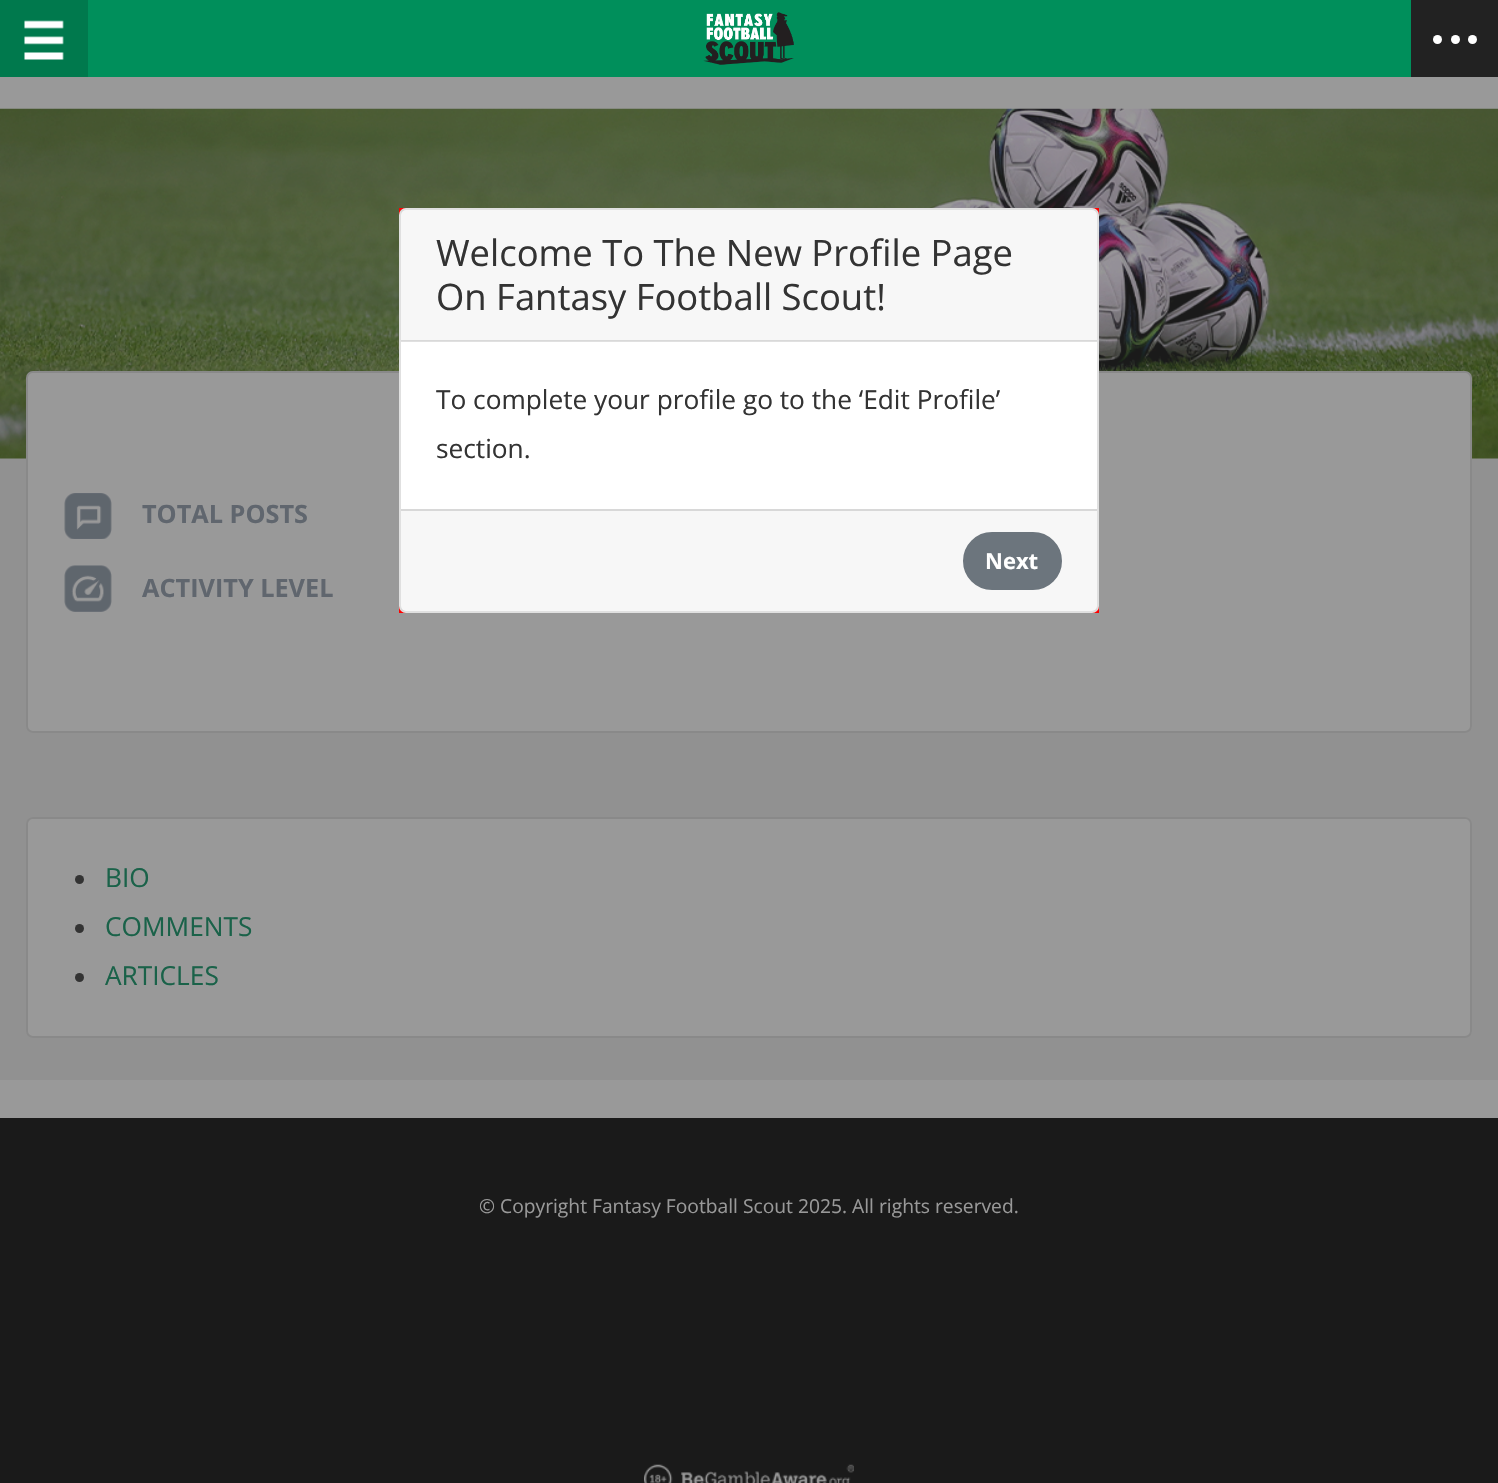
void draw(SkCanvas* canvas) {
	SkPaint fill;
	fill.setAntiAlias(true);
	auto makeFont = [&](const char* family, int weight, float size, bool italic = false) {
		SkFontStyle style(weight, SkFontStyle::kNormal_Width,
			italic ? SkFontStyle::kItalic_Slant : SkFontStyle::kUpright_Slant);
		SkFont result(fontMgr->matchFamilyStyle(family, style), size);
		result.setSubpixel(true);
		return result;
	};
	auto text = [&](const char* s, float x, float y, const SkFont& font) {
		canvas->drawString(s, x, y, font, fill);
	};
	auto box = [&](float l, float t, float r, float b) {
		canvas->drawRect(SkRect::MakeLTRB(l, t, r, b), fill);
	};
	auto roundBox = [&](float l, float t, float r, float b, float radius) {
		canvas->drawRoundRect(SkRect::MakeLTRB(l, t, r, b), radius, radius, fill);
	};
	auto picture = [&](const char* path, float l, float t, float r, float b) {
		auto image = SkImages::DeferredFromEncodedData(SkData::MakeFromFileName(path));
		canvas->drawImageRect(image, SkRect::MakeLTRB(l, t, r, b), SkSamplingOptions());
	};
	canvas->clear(0xFF1A1A1A);
	fill.setColor(0xFF008F5B);
	box(88, 0, 1411, 77);
	fill.setColor(0xFF00794D);
	box(0, 0, 88, 77);
	picture("image0.png", 24, 20, 64, 60);
	fill.setColor(0xFF222222);
	box(1411, 0, 1498, 77);
	fill.setColor(0xFFFFFFFF);
	canvas->drawCircle(1437.5f, 39.5f, 4.5f, fill);
	canvas->drawCircle(1455.5f, 39.5f, 4.5f, fill);
	canvas->drawCircle(1472.5f, 39.5f, 4.5f, fill);
	picture("image1.png", 703, 12, 794, 65);
	fill.setColor(0xFF999999);
	box(0, 77, 1498, 1118);
	fill.setColor(0xFF919191);
	box(0, 458, 1498, 1080);
	picture("image2.png", 0, 108, 1498, 459);
	fill.setColor(0xFF999999);
	roundBox(26, 371, 1472, 733, 7);
	fill.setStyle(SkPaint::kStroke_Style);
	fill.setStrokeWidth(2);
	fill.setColor(0x1F1A1A1A);
	canvas->drawRoundRect(SkRect::MakeLTRB(27, 372, 1471, 732), 6, 6, fill);
	fill.setStyle(SkPaint::kFill_Style);
	fill.setColor(0xFFFF0000);
	box(399, 208, 1099, 613);
	fill.setColor(0xFFFFFFFF);
	roundBox(399, 208, 1099, 613, 7);
	fill.setStyle(SkPaint::kStroke_Style);
	fill.setColor(0x1F000000);
	canvas->drawRoundRect(SkRect::MakeLTRB(400, 209, 1098, 612), 6, 6, fill);
	fill.setStyle(SkPaint::kFill_Style);
	fill.setColor(0x08000000);
	box(401, 210, 1097, 341);
	fill.setColor(0x1F000000);
	box(401, 340, 1097, 342);
	fill.setColor(0x08000000);
	box(401, 511, 1097, 611);
	fill.setColor(0xFFD8D8D8);
	box(401, 509, 1097, 511);
	fill.setColor(0xFF6C757D);
	canvas->drawRoundRect(SkRect::MakeLTRB(964, 533, 1061, 589), 28, 28, fill);
	fill.setStyle(SkPaint::kStroke_Style);
	canvas->drawRoundRect(SkRect::MakeLTRB(964, 533, 1061, 589), 28, 28, fill);
	picture("image3.png", 64, 493, 112, 539);
	picture("image4.png", 64, 565, 112, 612);
	fill.setStyle(SkPaint::kFill_Style);
	fill.setColor(0xFF999999);
	roundBox(26, 817, 1472, 1038, 7);
	fill.setStyle(SkPaint::kStroke_Style);
	fill.setColor(0x1F1A1A1A);
	canvas->drawRoundRect(SkRect::MakeLTRB(27, 818, 1471, 1037), 6, 6, fill);
	fill.setStyle(SkPaint::kFill_Style);
	fill.setColor(0xFF333333);
	canvas->drawCircle(79.5f, 879.5f, 4.5f, fill);
	canvas->drawCircle(79.5f, 928.5f, 4.5f, fill);
	canvas->drawCircle(79.5f, 977.5f, 4.5f, fill);
	picture("image5.png", 644, 1464, 854, 1483);
	auto font1 = makeFont("Open Sans", 400, 36.4f);
	text("Welcome To The New Profile Page", 436, 266, font1);
	text("On Fantasy Football Scout!", 436, 310, font1);
	auto font2 = makeFont("Open Sans", 400, 26.25f);
	text("To complete your profile go to the ‘Edit Profile’", 436, 409, font2);
	text("section.", 436, 458, font2);
	auto font3 = makeFont("Open Sans", 700, 22);
	fill.setColor(0xFFFFFFFF);
	text("Next", 985, 569, font3);
	auto font4 = makeFont("Open Sans", 700, 25.25f);
	fill.setColor(0xFF60666E);
	text("TOTAL POSTS", 142, 523, font4);
	text("ACTIVITY LEVEL", 142, 597, font4);
	fill.setColor(0xFF1A6249);
	text("BIO", 105, 887, font2);
	text("COMMENTS", 105, 936, font2);
	text("ARTICLES", 105, 985, font2);
	auto font5 = makeFont("Open Sans", 400, 19.25f);
	fill.setColor(0xFF999999);
	text("© Copyright Fantasy Football Scout 2025. All rights reserved.", 479, 1213, font5);
}
